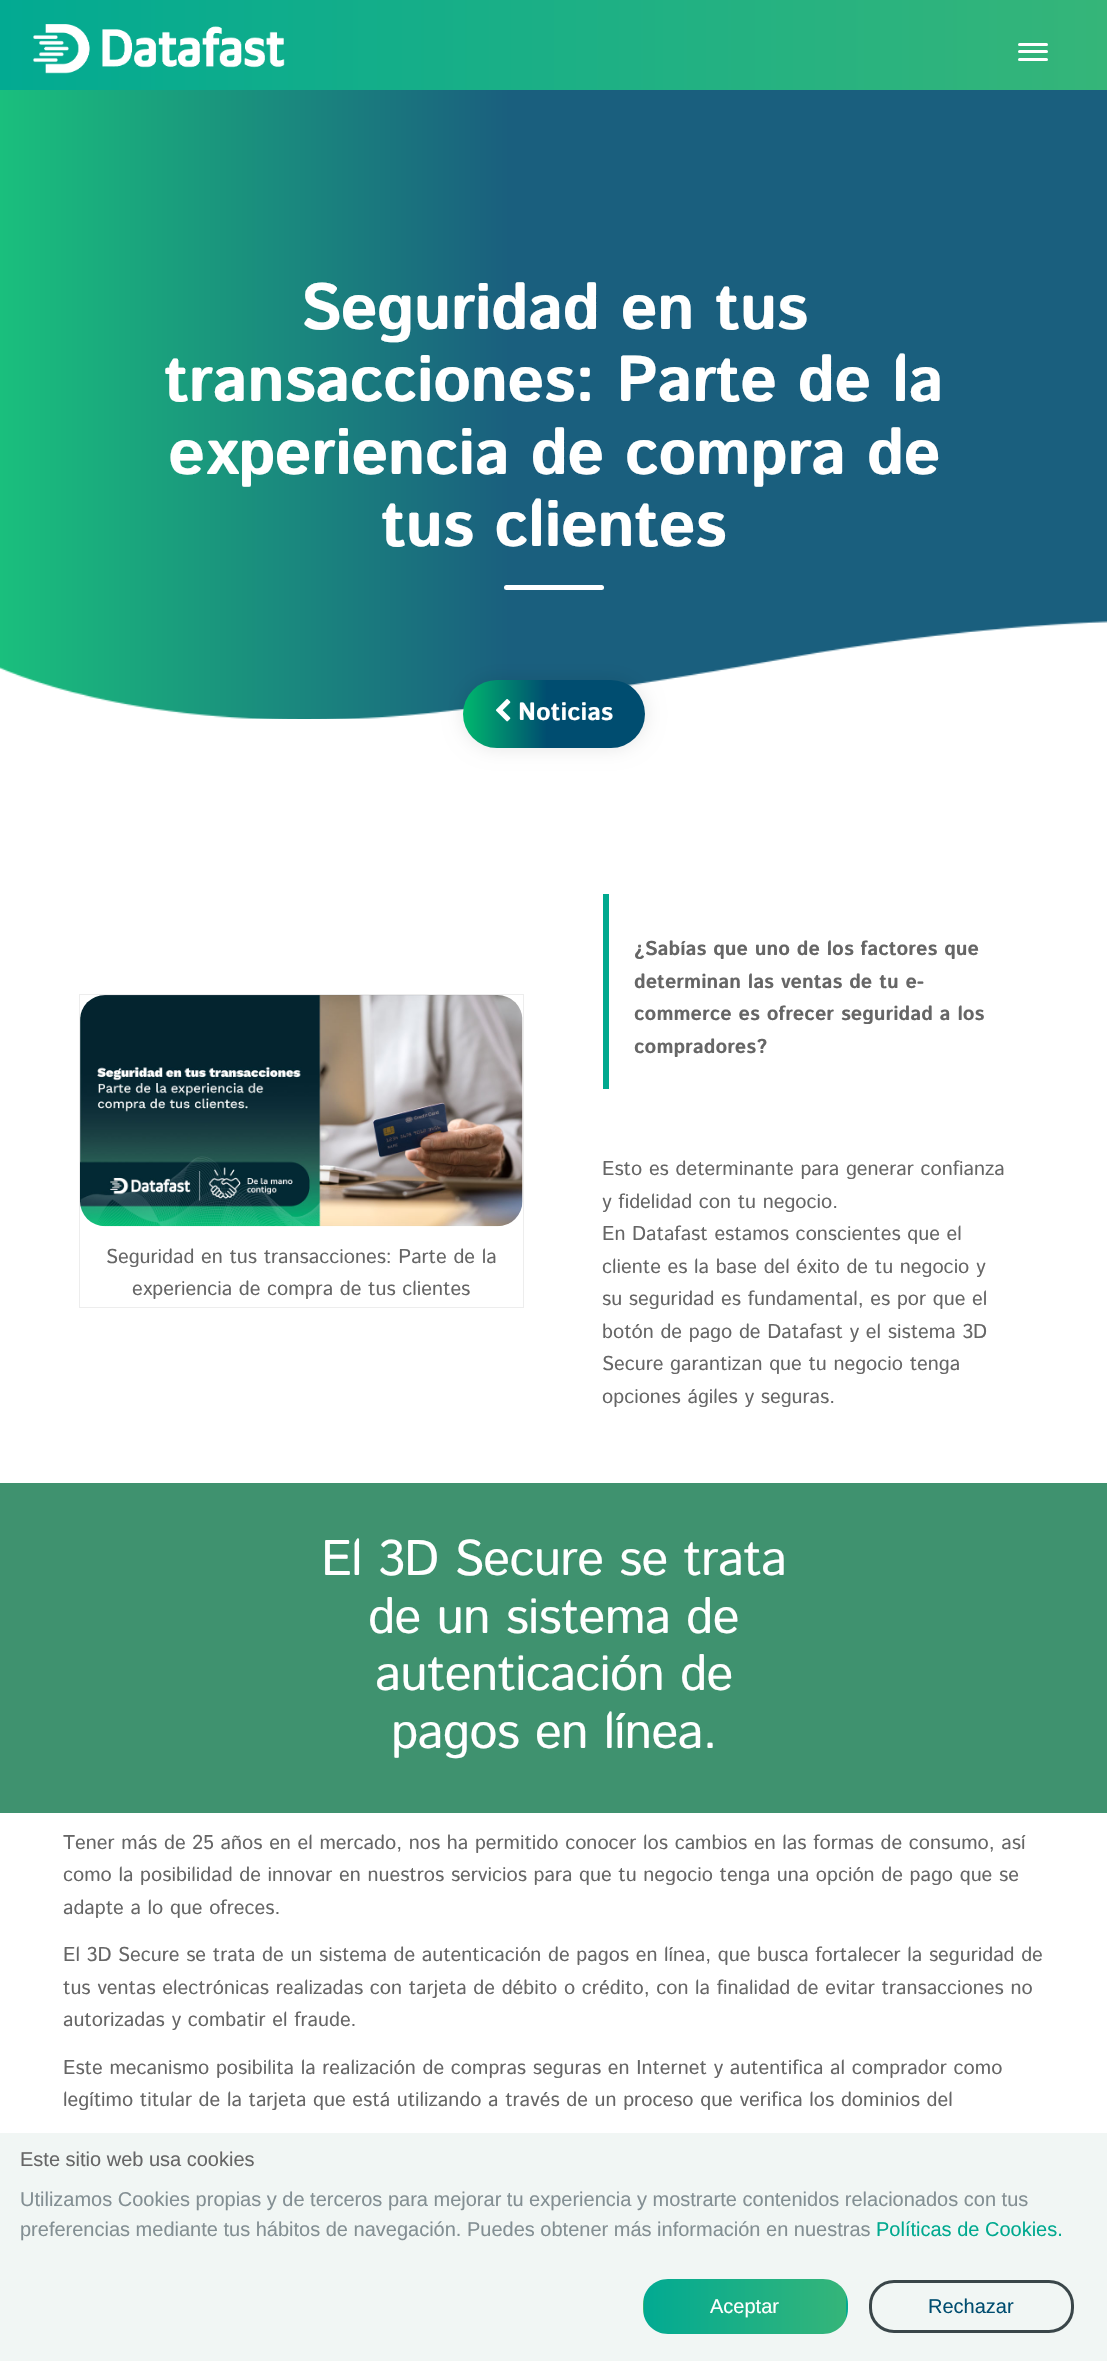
void draw(SkCanvas* canvas) {
	SkPaint fill;
	fill.setAntiAlias(true);
	auto makeFont = [&](const char* family, int weight, float size, bool italic = false) {
		SkFontStyle style(weight, SkFontStyle::kNormal_Width,
			italic ? SkFontStyle::kItalic_Slant : SkFontStyle::kUpright_Slant);
		SkFont result(fontMgr->matchFamilyStyle(family, style), size);
		result.setSubpixel(true);
		return result;
	};
	auto text = [&](const char* s, float x, float y, const SkFont& font) {
		canvas->drawString(s, x, y, font, fill);
	};
	auto spacedText = [&](const char* s, float x, float y, const SkFont& font, const SkPaint& ink, float letter, float word) {
		std::vector<SkGlyphID> glyphs(font.countText(s, strlen(s), SkTextEncoding::kUTF8));
		std::vector<float> xs(glyphs.size());
		font.textToGlyphs(s, strlen(s), SkTextEncoding::kUTF8, glyphs);
		font.getXPos(glyphs, xs, x);
		float extra = 0;
		for (size_t i = 0; i < glyphs.size(); i++) {
			xs[i] += extra;
			extra += letter + word * (glyphs[i] == font.unicharToGlyph(' '));
		}
		canvas->drawTextBlob(SkTextBlob::MakeFromPosHGlyphs(glyphs, xs, y, font), 0, 0, ink);
	};
	auto box = [&](float l, float t, float r, float b) {
		canvas->drawRect(SkRect::MakeLTRB(l, t, r, b), fill);
	};
	auto roundBox = [&](float l, float t, float r, float b, float radius) {
		canvas->drawRoundRect(SkRect::MakeLTRB(l, t, r, b), radius, radius, fill);
	};
	auto picture = [&](const char* path, float l, float t, float r, float b) {
		auto image = SkImages::DeferredFromEncodedData(SkData::MakeFromFileName(path));
		canvas->drawImageRect(image, SkRect::MakeLTRB(l, t, r, b), SkSamplingOptions());
	};
	canvas->clear(0xFFFFFFFF);
	{
		const SkColor colors[] = {0xFF02AA92, 0xFF35B579};
		const float stops[] = {0, 1};
		const SkPoint ends[] = {{0, 45}, {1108, 45}};
		fill.setShader(SkGradientShader::MakeLinear(ends, colors, stops, 2, SkTileMode::kClamp));
		fill.setAlpha(255);
	}
	box(0, 0, 1107, 90);
	picture("image0.png", 33, 24, 285, 74);
	fill.setShader(nullptr);
	fill.setColor(0xFFFFFFFF);
	roundBox(1018, 50, 1048, 53, 1.5f);
	roundBox(1018, 43, 1048, 46, 1.5f);
	roundBox(1018, 58, 1048, 61, 1.5f);
	{
		const SkColor colors[] = {0xFF1ABF7D, 0xFF1A5F7E, 0xFF1A5F7E};
		const float stops[] = {0, 0.46f, 1};
		const SkPoint ends[] = {{0, 359}, {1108, 359}};
		fill.setShader(SkGradientShader::MakeLinear(ends, colors, stops, 3, SkTileMode::kClamp));
		fill.setAlpha(255);
	}
	box(0, 90, 1107, 719);
	fill.setShader(nullptr);
	fill.setColor(0xFFFFFFFF);
	roundBox(504, 585, 604, 590, 2.5f);
	picture("image2.png", 0, 621, 1107, 719);
	fill.setColor(0x1A000000);
	fill.setMaskFilter(SkMaskFilter::MakeBlur(kNormal_SkBlurStyle, 9.5f));
	canvas->drawRoundRect(SkRect::MakeLTRB(463, 680, 645, 748), 34, 34, fill);
	fill.setMaskFilter(nullptr);
	{
		const SkColor colors[] = {0xFF00B86E, 0xFF004D70, 0xFF004D70};
		const float stops[] = {0, 0.46f, 1};
		const SkPoint ends[] = {{463, 714}, {645, 714}};
		fill.setShader(SkGradientShader::MakeLinear(ends, colors, stops, 3, SkTileMode::kClamp));
		fill.setAlpha(255);
	}
	roundBox(463, 680, 645, 748, 34);
	picture("image1.png", 495, 699, 511, 722);
	fill.setStyle(SkPaint::kStroke_Style);
	fill.setStrokeWidth(1);
	fill.setShader(nullptr);
	fill.setColor(0xFFEDEDED);
	canvas->drawRect(SkRect::MakeLTRB(79.5f, 994.5f, 523.5f, 1307.5f), fill);
	picture("image3.png", 80, 995, 523, 1227);
	fill.setStyle(SkPaint::kFill_Style);
	fill.setColor(0xFF00A98F);
	box(603, 894, 609, 1089);
	fill.setColor(0xFF3F926F);
	box(0, 1483, 1107, 1813);
	fill.setColor(0xFFF1F6F4);
	box(0, 2133, 1107, 2361);
	canvas->save();
	canvas->clipPath(SkPathBuilder().moveTo(668, 2279).lineTo(823, 2279).cubicTo(837, 2279, 848, 2290, 848, 2304).lineTo(848, 2309).cubicTo(848, 2323, 837, 2334, 823, 2334).lineTo(668, 2334).cubicTo(654, 2334, 643, 2323, 643, 2309).lineTo(643, 2304).cubicTo(643, 2290, 654, 2279, 668, 2279).close().detach(), true);
	{
		const SkColor colors[] = {0xFF02AA92, 0xFF35B579};
		const float stops[] = {0, 1};
		const SkPoint ends[] = {{441, 2306}, {644, 2306}};
		fill.setShader(SkGradientShader::MakeLinear(ends, colors, stops, 2, SkTileMode::kClamp));
		fill.setAlpha(255);
	}
	box(643, 2297, 644, 2316);
	{
		const SkColor colors[] = {0xFF02AA92, 0xFF35B579};
		const float stops[] = {0, 1};
		const SkPoint ends[] = {{644, 2306}, {846, 2306}};
		fill.setShader(SkGradientShader::MakeLinear(ends, colors, stops, 2, SkTileMode::kClamp));
		fill.setAlpha(255);
	}
	box(644, 2279, 846, 2334);
	{
		const SkColor colors[] = {0xFF02AA92, 0xFF35B579};
		const float stops[] = {0, 1};
		const SkPoint ends[] = {{846, 2306}, {1049, 2306}};
		fill.setShader(SkGradientShader::MakeLinear(ends, colors, stops, 2, SkTileMode::kClamp));
		fill.setAlpha(255);
	}
	box(846, 2294, 848, 2319);
	canvas->restore();
	fill.setStyle(SkPaint::kStroke_Style);
	fill.setStrokeWidth(3);
	fill.setShader(nullptr);
	fill.setColor(0xFF3A4649);
	canvas->drawRoundRect(SkRect::MakeLTRB(870.5f, 2281.5f, 1072.5f, 2331.5f), 23.5f, 23.5f, fill);
	auto font1 = makeFont("Istok Web", 700, 65);
	fill.setStyle(SkPaint::kFill_Style);
	fill.setColor(0xFFFFFFFF);
	spacedText("Seguridad en tus", 300, 329, font1, fill, -1, 0);
	spacedText("transacciones: Parte de la", 164, 401, font1, fill, -1, 0);
	spacedText("experiencia de compra de", 168, 474, font1, fill, -1, 0);
	spacedText("tus clientes", 381, 546, font1, fill, -1, 0);
	auto font2 = makeFont("Istok Web", 700, 25);
	text("Noticias", 518, 720, font2);
	auto font3 = makeFont("Istok Web", 400, 20);
	fill.setColor(0xFF666666);
	text("Seguridad en tus transacciones: Parte de la", 106, 1263, font3);
	text("experiencia de compra de tus clientes", 132, 1295, font3);
	auto font4 = makeFont("Istok Web", 700, 20);
	text("¿Sabías que uno de los factores que", 634, 955, font4);
	text("determinan las ventas de tu e-", 634, 988, font4);
	text("commerce es ofrecer seguridad a los", 634, 1020, font4);
	text("compradores?", 634, 1053, font4);
	text("Esto es determinante para generar confianza", 602, 1175, font3);
	text("y fidelidad con tu negocio.", 602, 1208, font3);
	text("En Datafast estamos conscientes que el", 602, 1240, font3);
	text("cliente es la base del éxito de tu negocio y", 602, 1273, font3);
	text("su seguridad es fundamental, es por que el", 602, 1305, font3);
	text("botón de pago de Datafast y el sistema 3D", 602, 1338, font3);
	text("Secure garantizan que tu negocio tenga", 602, 1370, font3);
	text("opciones ágiles y seguras.", 602, 1403, font3);
	auto font5 = makeFont("Istok Web", 400, 50);
	fill.setColor(0xFFFFFFFF);
	spacedText("El 3D Secure se trata", 321, 1575, font5, fill, -0.75f, 0);
	spacedText("de un sistema de", 368, 1633, font5, fill, -0.75f, 0);
	spacedText("autenticación de", 375, 1690, font5, fill, -0.75f, 0);
	spacedText("pagos en línea.", 391, 1748, font5, fill, -0.75f, 0);
	fill.setColor(0xFF666666);
	text("Tener más de 25 años en el mercado, nos ha permitido conocer los cambios en las formas de consumo, así", 63, 1849, font3);
	text("como la posibilidad de innovar en nuestros servicios para que tu negocio tenga una opción de pago que se", 63, 1881, font3);
	text("adapte a lo que ofreces.", 63, 1914, font3);
	text("El 3D Secure se trata de un sistema de autenticación de pagos en línea, que busca fortalecer la seguridad de", 63, 1961, font3);
	text("tus ventas electrónicas realizadas con tarjeta de débito o crédito, con la finalidad de evitar transacciones no", 63, 1994, font3);
	text("autorizadas y combatir el fraude.", 63, 2026, font3);
	text("Este mecanismo posibilita la realización de compras seguras en Internet y autentifica al comprador como", 63, 2074, font3);
	text("legítimo titular de la tarjeta que está utilizando a través de un proceso que verifica los dominios del", 63, 2106, font3);
	auto font6 = makeFont("Liberation Sans", 400, 20);
	text("Este sitio web usa cookies", 20, 2166, font6);
	fill.setColor(0xFF838F93);
	text("Utilizamos Cookies propias y de terceros para mejorar tu experiencia y mostrarte contenidos relacionados con tus", 20, 2206, font6);
	text("preferencias mediante tus hábitos de navegación. Puedes obtener más información en nuestras", 20, 2236, font6);
	fill.setColor(0xFF00A98F);
	text("Políticas de Cookies.", 876, 2236, font6);
	fill.setColor(0xFFFFFFFF);
	text("Aceptar", 710, 2313, font6);
	fill.setColor(0xFF004D70);
	text("Rechazar", 928, 2313, font6);
}
